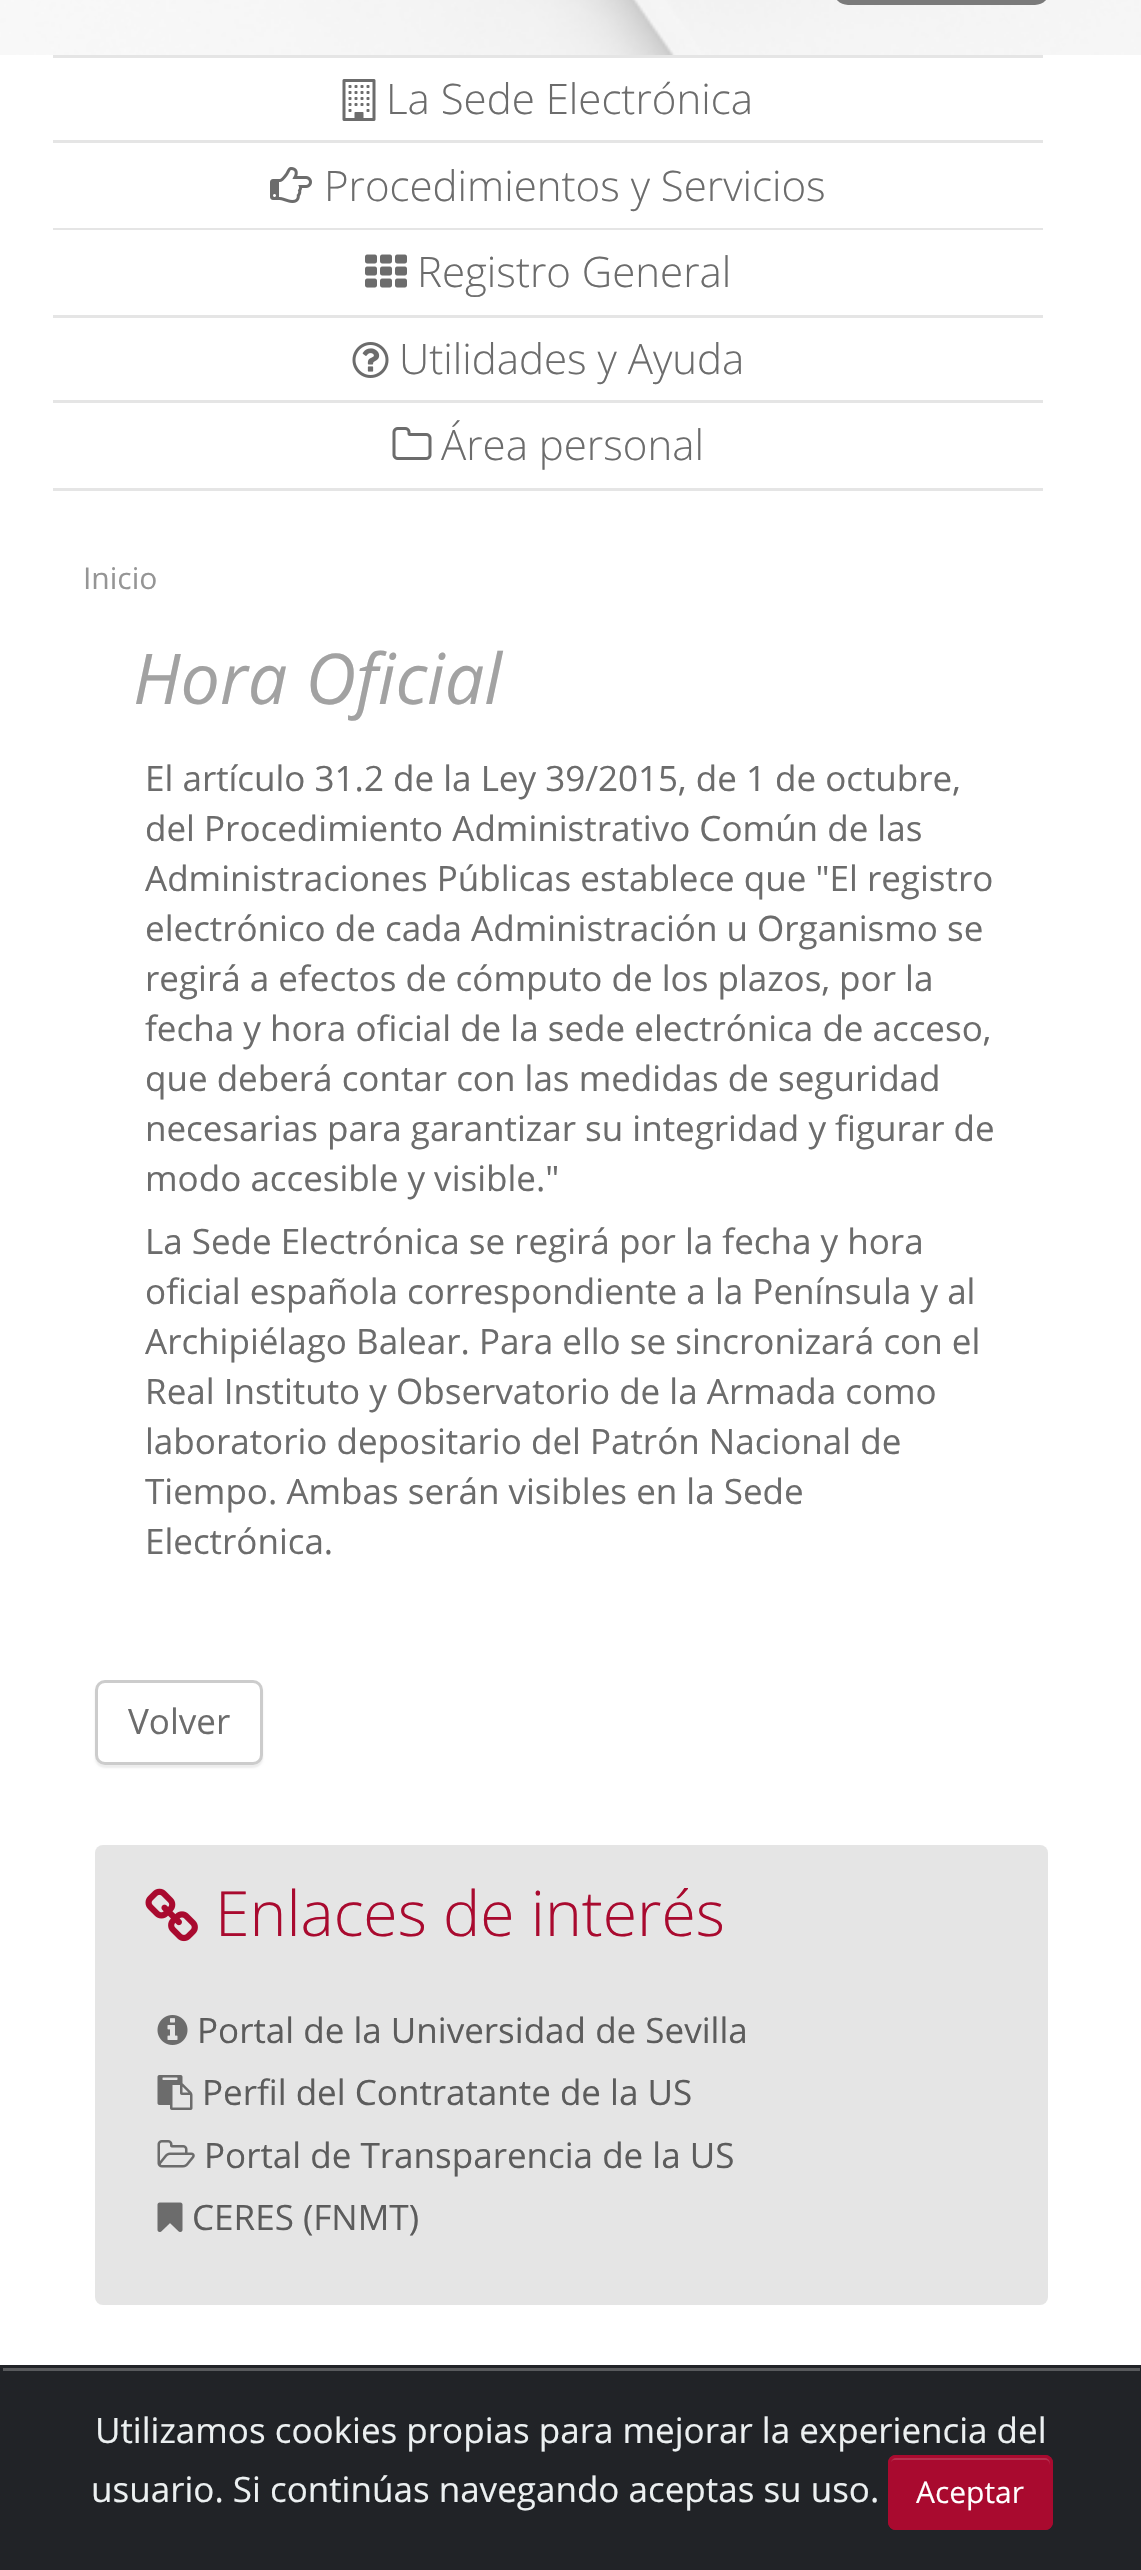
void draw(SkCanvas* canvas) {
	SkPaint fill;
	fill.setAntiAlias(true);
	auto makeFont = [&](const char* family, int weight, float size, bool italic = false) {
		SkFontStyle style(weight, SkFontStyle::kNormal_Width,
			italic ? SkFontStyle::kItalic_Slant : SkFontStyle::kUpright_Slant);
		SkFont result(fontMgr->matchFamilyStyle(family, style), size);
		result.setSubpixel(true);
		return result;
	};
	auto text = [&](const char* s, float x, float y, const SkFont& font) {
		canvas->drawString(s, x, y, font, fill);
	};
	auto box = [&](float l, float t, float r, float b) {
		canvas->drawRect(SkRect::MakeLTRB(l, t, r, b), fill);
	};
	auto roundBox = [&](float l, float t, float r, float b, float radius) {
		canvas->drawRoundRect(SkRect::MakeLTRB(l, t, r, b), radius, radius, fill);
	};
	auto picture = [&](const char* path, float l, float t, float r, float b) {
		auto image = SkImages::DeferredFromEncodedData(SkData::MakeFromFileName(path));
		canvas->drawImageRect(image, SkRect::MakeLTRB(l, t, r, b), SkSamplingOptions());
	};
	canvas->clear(0xFFFFFFFF);
	picture("image0.png", 0, 0, 1141, 55);
	fill.setColor(0xFF7A7A7A);
	roundBox(833, -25, 1050, 5, 25);
	fill.setColor(0xFFE5E5E5);
	box(53, 55, 1043, 58);
	box(53, 140, 1043, 143);
	picture("image1.png", 342, 79, 376, 121);
	box(53, 228, 1043, 230);
	picture("image2.png", 270, 167, 312, 203);
	box(53, 315, 1043, 318);
	picture("image3.png", 365, 254, 407, 288);
	box(53, 400, 1043, 403);
	picture("image4.png", 352, 342, 389, 378);
	box(53, 488, 1043, 491);
	picture("image5.png", 392, 427, 432, 460);
	fill.setColor(0x12000000);
	fill.setMaskFilter(SkMaskFilter::MakeBlur(kNormal_SkBlurStyle, 1));
	canvas->drawRoundRect(SkRect::MakeLTRB(95, 1683, 263, 1768), 10, 10, fill);
	fill.setMaskFilter(nullptr);
	fill.setColor(0xFFFFFFFF);
	canvas->drawRoundRect(SkRect::MakeLTRB(96.5f, 1681.5f, 261.5f, 1763.5f), 8.5f, 8.5f, fill);
	fill.setStyle(SkPaint::kStroke_Style);
	fill.setStrokeWidth(3);
	fill.setColor(0xFFCCCCCC);
	canvas->drawRoundRect(SkRect::MakeLTRB(96.5f, 1681.5f, 261.5f, 1763.5f), 8.5f, 8.5f, fill);
	fill.setStyle(SkPaint::kFill_Style);
	fill.setColor(0xFFE5E5E5);
	roundBox(95, 1845, 1048, 2305, 8);
	picture("image6.png", 145, 1888, 198, 1942);
	picture("image7.png", 157, 2015, 188, 2045);
	picture("image8.png", 157, 2075, 193, 2110);
	picture("image9.png", 157, 2140, 195, 2168);
	picture("image10.png", 157, 2202, 183, 2232);
	fill.setColor(0xFF212327);
	box(0, 2365, 1141, 2570);
	fill.setColor(0xFF595A5D);
	box(3, 2368, 1140, 2371);
	fill.setColor(0xFFA90A2F);
	roundBox(888, 2455, 1053, 2530, 8);
	fill.setColor(0xFFB62F4E);
	canvas->drawPath(SkPathBuilder().moveTo(895, 2460).lineTo(1045, 2460).cubicTo(1048, 2460, 1050, 2462, 1050, 2465).lineTo(1050, 2463).cubicTo(1050, 2460, 1048, 2458, 1045, 2458).lineTo(895, 2458).cubicTo(892, 2458, 890, 2460, 890, 2463).lineTo(890, 2465).cubicTo(890, 2462, 892, 2460, 895, 2460).close().detach(), fill);
	fill.setStyle(SkPaint::kStroke_Style);
	fill.setColor(0xFFA90A2F);
	canvas->drawRoundRect(SkRect::MakeLTRB(889.5f, 2456.5f, 1051.5f, 2528.5f), 6.5f, 6.5f, fill);
	auto font1 = makeFont("Open Sans", 300, 42);
	fill.setStyle(SkPaint::kFill_Style);
	fill.setColor(0xFF6C6C6C);
	text("La Sede Electrónica", 386, 114, font1);
	text("Procedimientos y Servicios", 324, 201, font1);
	text("Registro General", 417, 287, font1);
	text("Utilidades y Ayuda", 399, 374, font1);
	text("Área personal", 441, 460, font1);
	auto font2 = makeFont("Open Sans", 400, 30);
	fill.setColor(0xFF959595);
	text("Inicio", 83, 589, font2);
	auto font3 = makeFont("Open Sans", 400, 70, true);
	fill.setColor(0xFFA2A2A2);
	text("Hora Oficial", 133, 704, font3);
	auto font4 = makeFont("Open Sans", 400, 35);
	fill.setColor(0xFF6C6C6C);
	text("El artículo 31.2 de la Ley 39/2015, de 1 de octubre,", 145, 791, font4);
	text("del Procedimiento Administrativo Común de las", 145, 841, font4);
	text("Administraciones Públicas establece que \"El registro", 145, 891, font4);
	text("electrónico de cada Administración u Organismo se", 145, 941, font4);
	text("regirá a efectos de cómputo de los plazos, por la", 145, 991, font4);
	text("fecha y hora oficial de la sede electrónica de acceso,", 145, 1041, font4);
	text("que deberá contar con las medidas de seguridad", 145, 1091, font4);
	text("necesarias para garantizar su integridad y figurar de", 145, 1141, font4);
	text("modo accesible y visible.\"", 145, 1191, font4);
	text("La Sede Electrónica se regirá por la fecha y hora", 145, 1254, font4);
	text("oficial española correspondiente a la Península y al", 145, 1304, font4);
	text("Archipiélago Balear. Para ello se sincronizará con el", 145, 1354, font4);
	text("Real Instituto y Observatorio de la Armada como", 145, 1404, font4);
	text("laboratorio depositario del Patrón Nacional de", 145, 1454, font4);
	text("Tiempo. Ambas serán visibles en la Sede", 145, 1504, font4);
	text("Electrónica.", 145, 1554, font4);
	text("Volver", 128, 1734, font4);
	auto font5 = makeFont("Open Sans", 300, 62.5f);
	fill.setColor(0xFFA90A2F);
	text("Enlaces de interés", 215, 1936, font5);
	fill.setColor(0xFF5C5C5C);
	text("Portal de la Universidad de Sevilla", 197, 2043, font4);
	text("Perfil del Contratante de la US", 202, 2105, font4);
	text("Portal de Transparencia de la US", 204, 2168, font4);
	text("CERES (FNMT)", 192, 2230, font4);
	fill.setColor(0xFFECF0F1);
	text("Utilizamos cookies propias para mejorar la experiencia del", 95, 2443, font4);
	text("usuario. Si continúas navegando aceptas su uso.", 91, 2502, font4);
	fill.setColor(0xFFFFFFFF);
	text("Aceptar", 916, 2503, font2);
}
